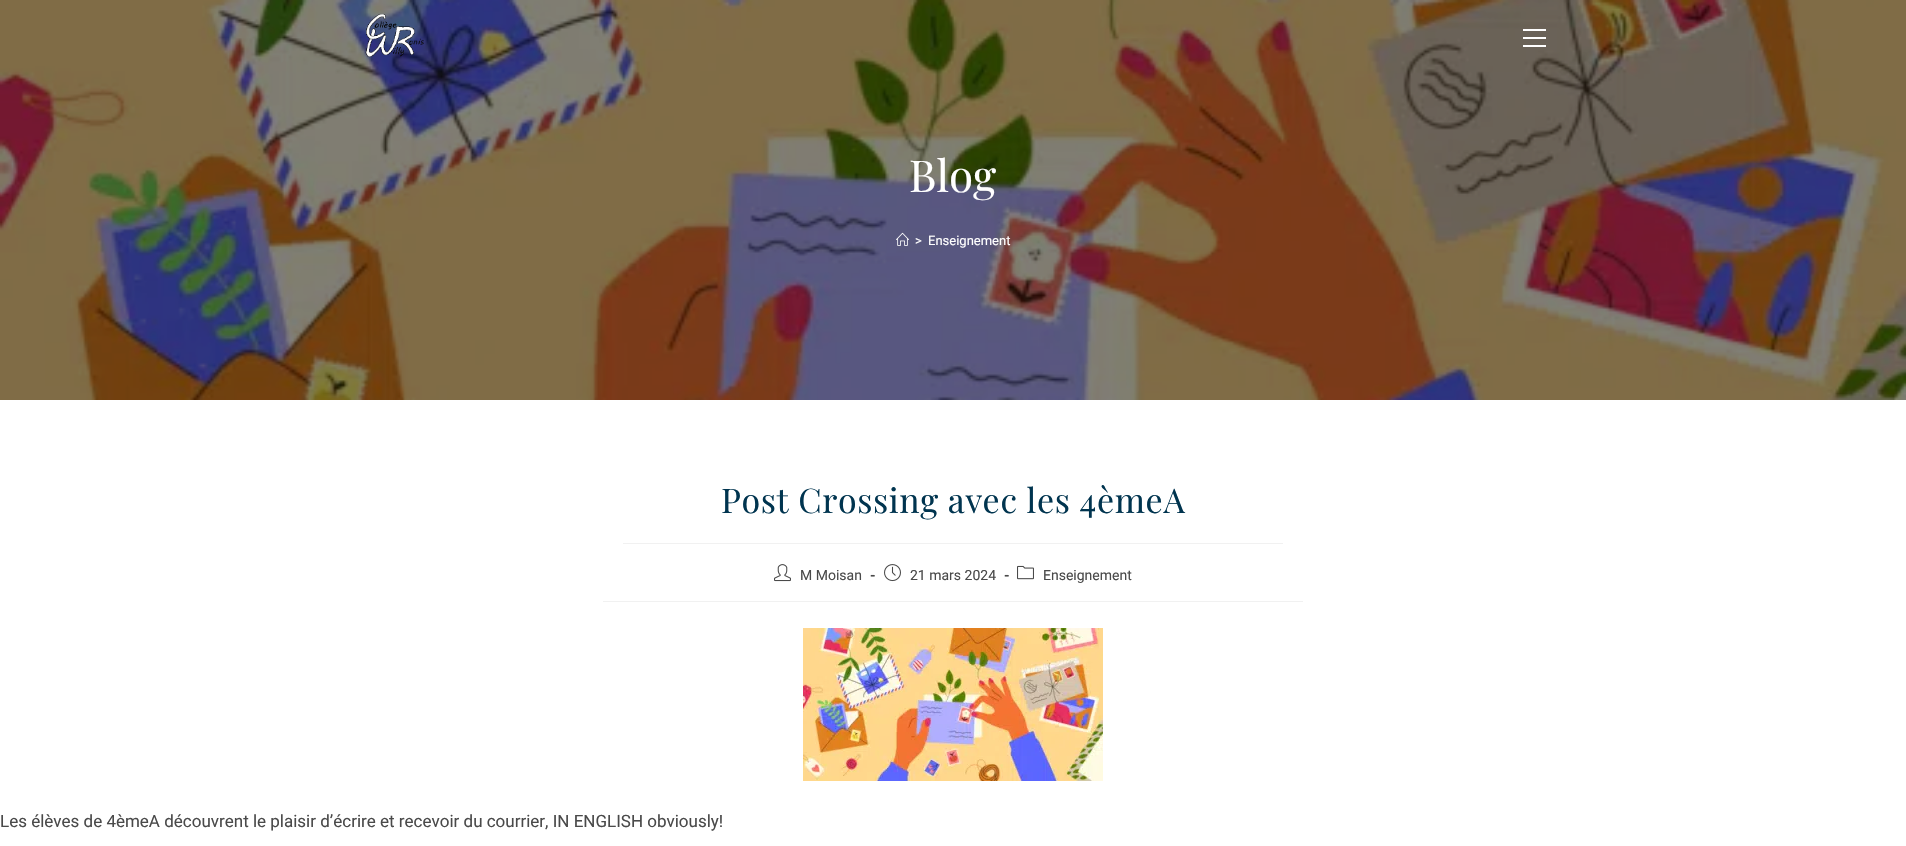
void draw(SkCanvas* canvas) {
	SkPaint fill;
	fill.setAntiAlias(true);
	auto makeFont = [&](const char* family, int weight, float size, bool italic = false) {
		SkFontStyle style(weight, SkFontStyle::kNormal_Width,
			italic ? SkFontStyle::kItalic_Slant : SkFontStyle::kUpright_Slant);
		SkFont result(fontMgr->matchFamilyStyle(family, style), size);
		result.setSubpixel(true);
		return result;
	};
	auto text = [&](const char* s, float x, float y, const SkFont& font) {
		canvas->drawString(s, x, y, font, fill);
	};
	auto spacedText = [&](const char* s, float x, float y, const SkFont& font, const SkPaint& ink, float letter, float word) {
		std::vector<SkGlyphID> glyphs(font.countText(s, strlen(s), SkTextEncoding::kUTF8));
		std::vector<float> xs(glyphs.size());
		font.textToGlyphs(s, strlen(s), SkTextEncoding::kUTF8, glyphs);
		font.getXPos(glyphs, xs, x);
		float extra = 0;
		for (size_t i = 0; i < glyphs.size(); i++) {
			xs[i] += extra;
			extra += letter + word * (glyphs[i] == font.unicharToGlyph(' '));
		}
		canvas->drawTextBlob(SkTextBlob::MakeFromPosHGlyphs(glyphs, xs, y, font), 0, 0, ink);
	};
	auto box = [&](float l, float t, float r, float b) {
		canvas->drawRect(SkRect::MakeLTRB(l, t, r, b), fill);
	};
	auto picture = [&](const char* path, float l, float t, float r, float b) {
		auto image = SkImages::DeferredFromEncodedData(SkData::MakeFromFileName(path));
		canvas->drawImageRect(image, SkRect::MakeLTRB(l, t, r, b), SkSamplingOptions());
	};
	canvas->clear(0xFFFFFFFF);
	picture("image1.png", 0, 0, 1906, 400);
	picture("image0.png", 365, 13, 424, 58);
	fill.setColor(0xFFFFFFFF);
	box(1523, 37, 1546, 39);
	box(1523, 29, 1546, 31);
	box(1523, 45, 1546, 47);
	picture("image2.png", 896, 232, 909, 246);
	fill.setColor(0xFFF1F1F1);
	box(623, 543, 1283, 544);
	box(603, 601, 1303, 602);
	picture("image3.png", 774, 564, 791, 582);
	picture("image4.png", 884, 564, 901, 582);
	picture("image5.png", 1017, 565, 1034, 580);
	picture("image6.png", 803, 628, 1103, 781);
	auto font1 = makeFont("Playfair Display", 400, 44);
	fill.setColor(0xFFFFFFFF);
	text("Blog", 909, 192, font1);
	auto font2 = makeFont("Roboto", 400, 13);
	text(">", 915, 245, font2);
	text("Enseignement", 928, 245, font2);
	auto font3 = makeFont("Playfair Display", 400, 34);
	fill.setColor(0xFF00344F);
	spacedText("Post Crossing avec les 4èmeA", 721, 513, font3, fill, 0.6f, 0);
	auto font4 = makeFont("Roboto", 400, 14);
	fill.setColor(0xFF4A4A4A);
	text("M Moisan", 800, 580, font4);
	auto font5 = makeFont("Roboto", 700, 14);
	text("-", 870, 580, font5);
	text("21 mars 2024", 910, 580, font4);
	text("-", 1004, 580, font5);
	text("Enseignement", 1043, 580, font4);
	auto font6 = makeFont("Roboto", 400, 17);
	text("Les élèves de 4èmeA découvrent le plaisir d’écrire et recevoir du courrier, IN ENGLISH obviously!", 0, 827, font6);
}
